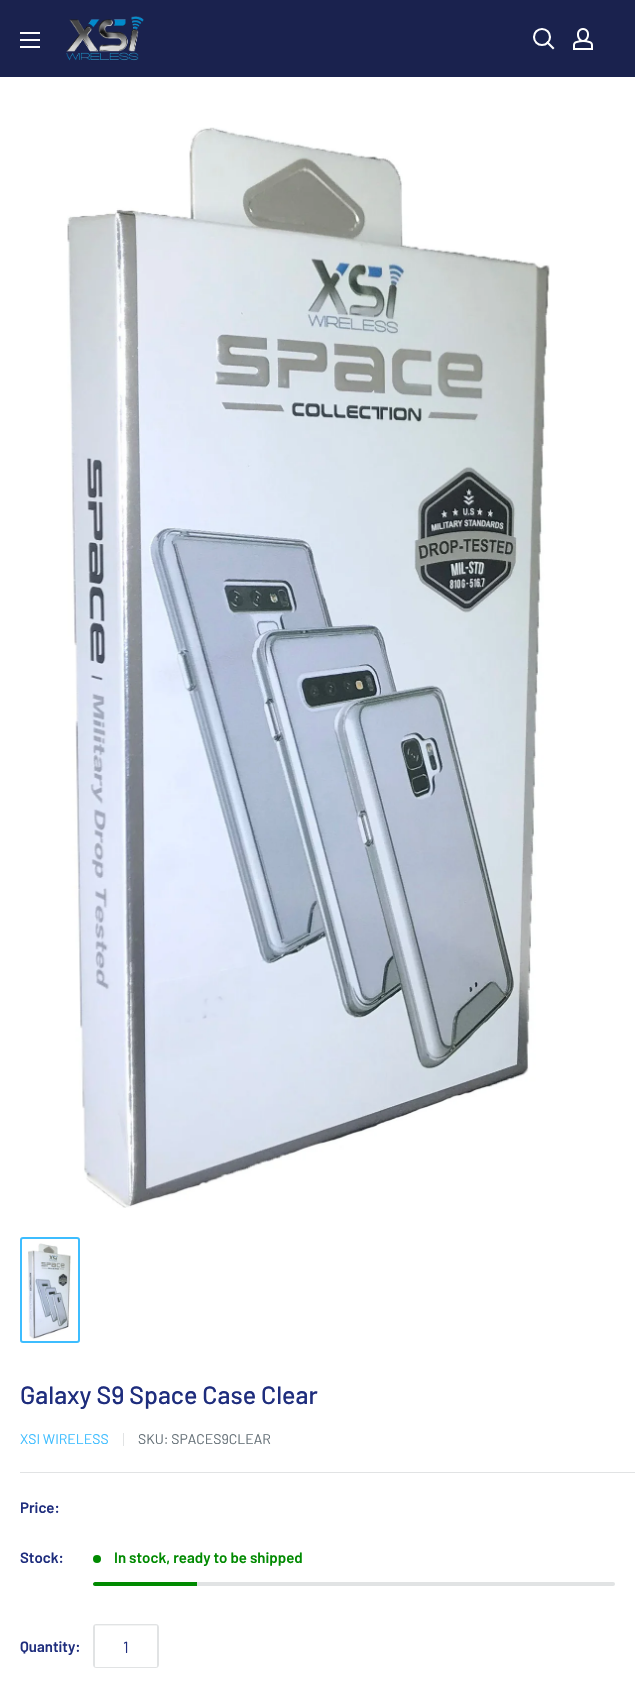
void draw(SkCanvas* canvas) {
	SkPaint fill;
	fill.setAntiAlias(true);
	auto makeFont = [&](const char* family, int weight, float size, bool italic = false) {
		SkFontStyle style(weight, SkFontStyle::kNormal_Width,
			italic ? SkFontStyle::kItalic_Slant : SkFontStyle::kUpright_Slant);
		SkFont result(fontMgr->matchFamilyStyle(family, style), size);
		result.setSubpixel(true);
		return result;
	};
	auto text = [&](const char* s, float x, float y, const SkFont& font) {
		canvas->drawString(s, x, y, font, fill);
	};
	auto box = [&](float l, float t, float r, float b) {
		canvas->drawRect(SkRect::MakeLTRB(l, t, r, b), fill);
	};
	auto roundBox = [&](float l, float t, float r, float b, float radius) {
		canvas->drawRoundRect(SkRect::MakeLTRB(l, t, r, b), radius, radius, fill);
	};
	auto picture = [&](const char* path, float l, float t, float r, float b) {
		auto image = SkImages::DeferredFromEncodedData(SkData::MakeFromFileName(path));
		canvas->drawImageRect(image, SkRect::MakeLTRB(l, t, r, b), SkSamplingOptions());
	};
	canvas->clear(0xFFFFFFFF);
	fill.setColor(0xFF1A224E);
	box(0, 0, 635, 77);
	picture("image0.png", 20, 32, 40, 48);
	picture("image1.png", 66, 16, 144, 61);
	fill.setStyle(SkPaint::kStroke_Style);
	fill.setStrokeWidth(2.1f);
	fill.setStrokeCap(SkPaint::kSquare_Cap);
	fill.setColor(0xFFFFFFFF);
	canvas->drawPath(SkPathBuilder().moveTo(553, 48).lineTo(547.5f, 42.5f).detach(), fill);
	fill.setStrokeCap(SkPaint::kButt_Cap);
	canvas->drawCircle(542, 37, 8, fill);
	picture("image2.png", 573, 28, 593, 50);
	picture("image3.png", 67, 127, 550, 1208);
	fill.setStrokeWidth(2);
	fill.setColor(0xFF3DBDFF);
	canvas->drawRoundRect(SkRect::MakeLTRB(21, 1238, 79, 1342), 2, 2, fill);
	picture("image4.png", 28, 1243, 71, 1339);
	fill.setStyle(SkPaint::kFill_Style);
	fill.setColor(0xFFE1E3E4);
	box(123, 1433, 124, 1446);
	box(20, 1472, 635, 1473);
	fill.setColor(0xFF008A00);
	canvas->drawCircle(97, 1559, 4, fill);
	fill.setColor(0xFFE1E3E4);
	roundBox(93, 1582, 615, 1586, 2);
	fill.setColor(0xFF008A00);
	canvas->drawPath(SkPathBuilder().moveTo(95, 1582).lineTo(197, 1582).lineTo(197, 1586).lineTo(95, 1586).cubicTo(94, 1586, 93, 1585, 93, 1584).cubicTo(93, 1583, 94, 1582, 95, 1582).close().detach(), fill);
	fill.setStyle(SkPaint::kStroke_Style);
	fill.setStrokeWidth(1);
	fill.setColor(0xFFE1E3E4);
	canvas->drawRoundRect(SkRect::MakeLTRB(93.5f, 1624.5f, 158.5f, 1667.5f), 2.5f, 2.5f, fill);
	fill.setStyle(SkPaint::kFill_Style);
	fill.setColor(0x66E1E3E4);
	box(95, 1625, 157, 1626);
	fill.setColor(0xFFE1E3E4);
	box(157, 1625, 158, 1667);
	box(94, 1625, 95, 1667);
	auto font1 = makeFont("Barlow", 500, 25);
	fill.setColor(0xFF1E2D7D);
	text("Galaxy S9 Space Case Clear", 20, 1404, font1);
	auto font2 = makeFont("Barlow", 400, 14);
	fill.setColor(0xFF3DBDFF);
	text("XSI WIRELESS", 20, 1444, font2);
	fill.setColor(0xFF677279);
	text("SKU: SPACES9CLEAR", 138, 1444, font2);
	auto font3 = makeFont("Barlow", 600, 15);
	fill.setColor(0xFF1E2D7D);
	text("Price:", 20, 1513, font3);
	text("Stock:", 20, 1563, font3);
	fill.setColor(0xFF008A00);
	text("In stock, ready to be shipped", 114, 1563, font3);
	fill.setColor(0xFF1E2D7D);
	text("Quantity:", 20, 1652, font3);
	auto font4 = makeFont("Barlow", 400, 16);
	text("1", 123, 1653, font4);
}
